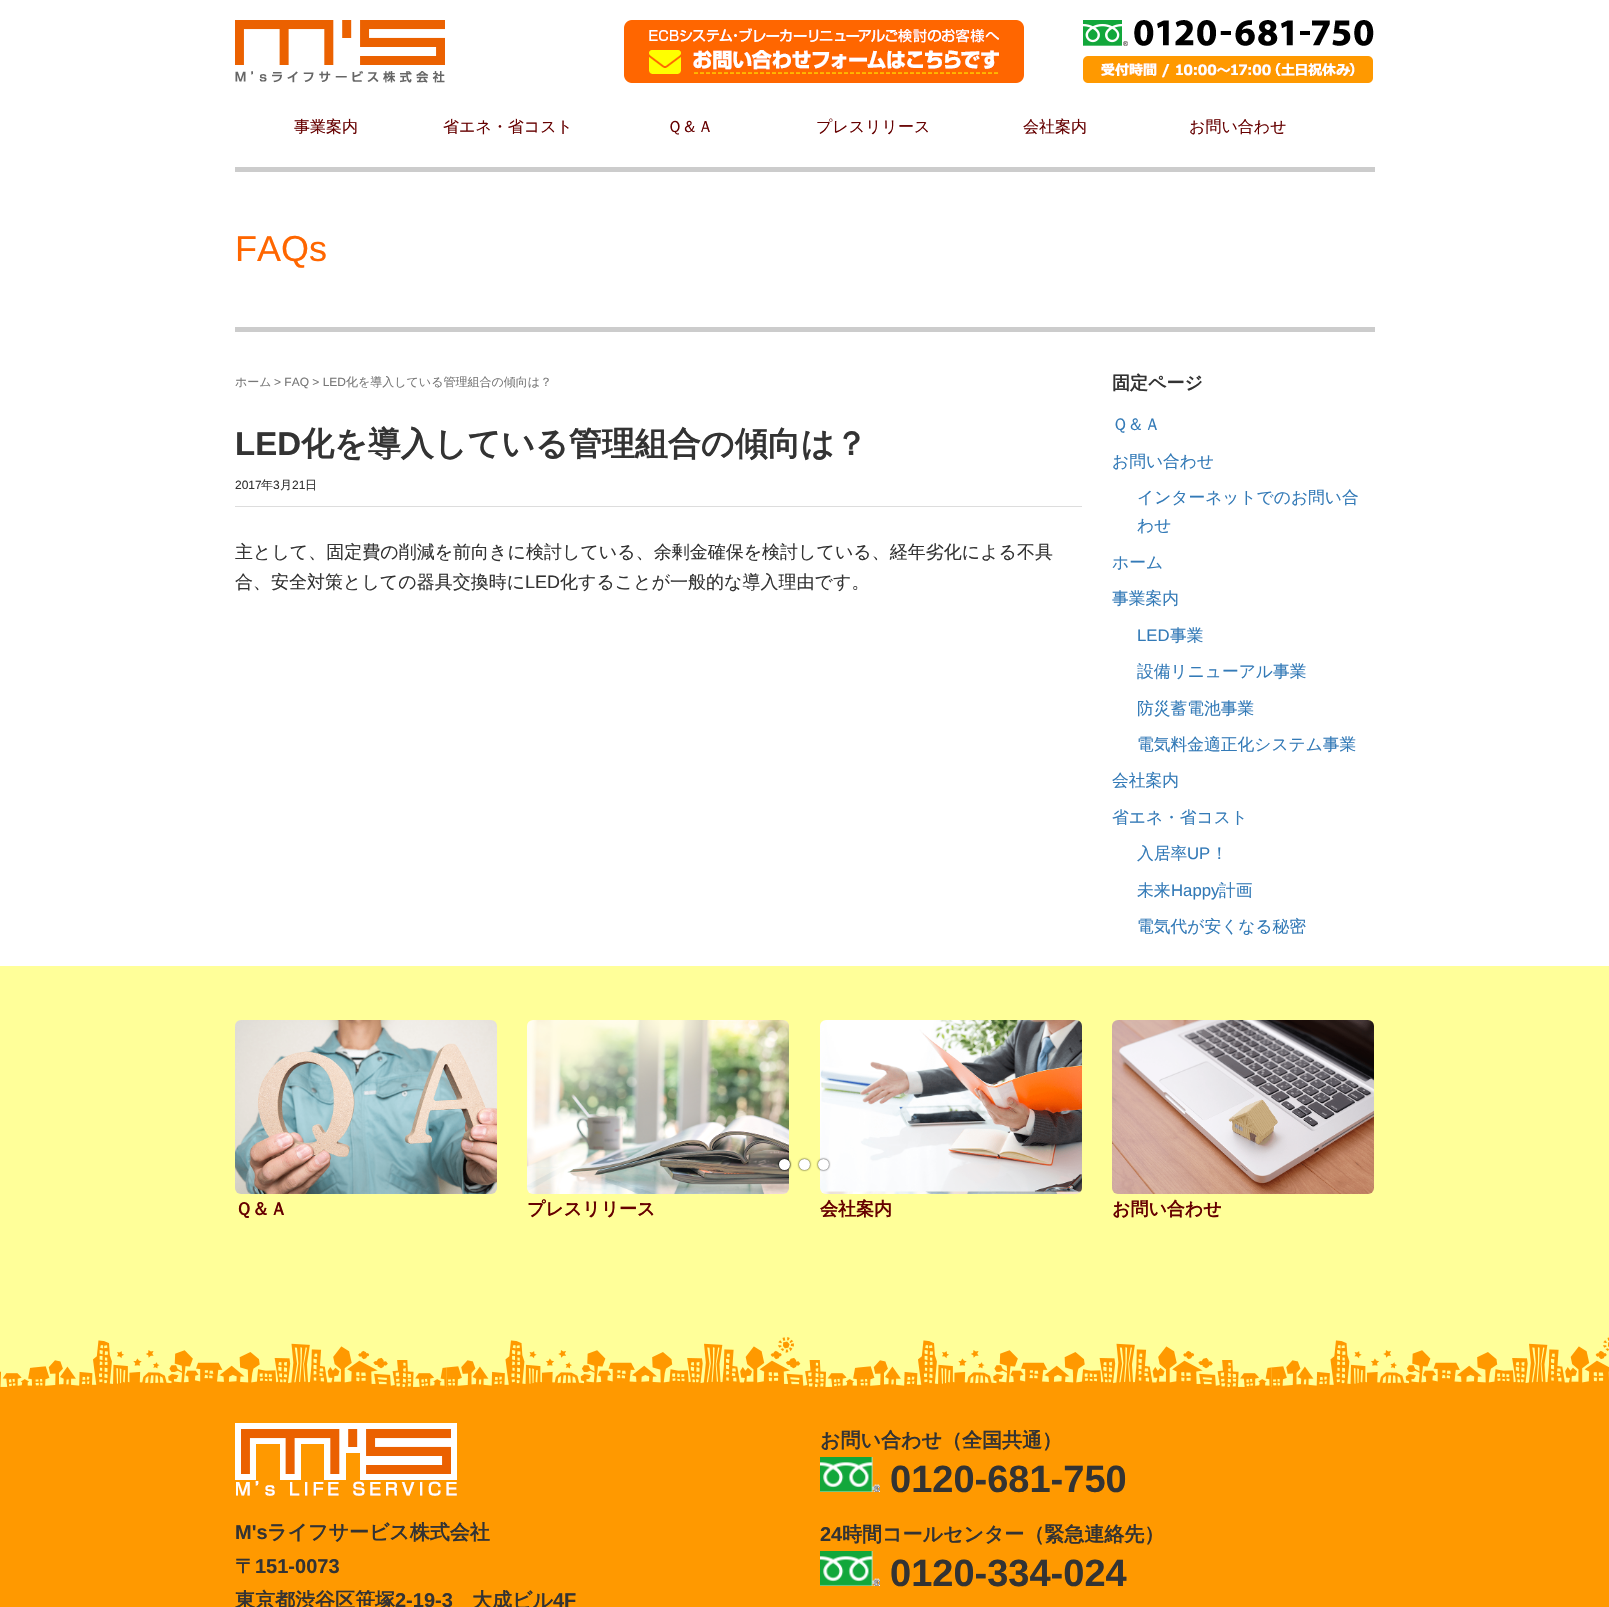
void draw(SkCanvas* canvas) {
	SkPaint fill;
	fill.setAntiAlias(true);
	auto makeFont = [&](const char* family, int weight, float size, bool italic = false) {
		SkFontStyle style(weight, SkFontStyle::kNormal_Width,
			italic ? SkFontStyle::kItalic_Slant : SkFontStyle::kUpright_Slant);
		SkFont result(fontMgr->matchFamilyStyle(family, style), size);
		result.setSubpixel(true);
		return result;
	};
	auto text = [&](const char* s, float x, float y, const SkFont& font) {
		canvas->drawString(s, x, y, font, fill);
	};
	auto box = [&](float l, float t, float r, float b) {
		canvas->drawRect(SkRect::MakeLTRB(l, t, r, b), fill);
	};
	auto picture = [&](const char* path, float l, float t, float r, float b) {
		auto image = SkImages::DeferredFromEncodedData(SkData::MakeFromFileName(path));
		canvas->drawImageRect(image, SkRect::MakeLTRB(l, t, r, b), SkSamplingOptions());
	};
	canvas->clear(0xFFFFFFFF);
	picture("image0.png", 235, 20, 445, 83);
	picture("image1.png", 624, 20, 1024, 83);
	picture("image2.png", 1083, 20, 1374, 83);
	fill.setColor(0xFFCCCCCC);
	box(235, 167, 1375, 172);
	box(235, 327, 1375, 332);
	fill.setColor(0xFFDDDDDD);
	box(235, 506, 1082, 507);
	fill.setColor(0xFFFF9900);
	box(0, 1387, 1609, 1607);
	fill.setColor(0xFFFFFF99);
	box(0, 966, 1609, 1337);
	picture("image5.png", 527, 1020, 789, 1194);
	fill.setColor(0xFF000000);
	fill.setMaskFilter(SkMaskFilter::MakeBlur(kNormal_SkBlurStyle, 1));
	canvas->drawRoundRect(SkRect::MakeLTRB(779, 1159, 790, 1170), 5.5f, 5.5f, fill);
	fill.setMaskFilter(nullptr);
	fill.setMaskFilter(SkMaskFilter::MakeBlur(kNormal_SkBlurStyle, 1));
	canvas->drawRoundRect(SkRect::MakeLTRB(779, 1159, 790, 1170), 5.5f, 5.5f, fill);
	fill.setMaskFilter(nullptr);
	fill.setColor(0xFFFFFFFF);
	canvas->drawCircle(784.5f, 1164.5f, 5.5f, fill);
	fill.setColor(0xFF000000);
	fill.setMaskFilter(SkMaskFilter::MakeBlur(kNormal_SkBlurStyle, 1));
	canvas->drawRoundRect(SkRect::MakeLTRB(799, 1159, 810, 1170), 5.5f, 5.5f, fill);
	fill.setMaskFilter(nullptr);
	fill.setColor(0xFFFFFFFF);
	canvas->drawCircle(804.5f, 1164.5f, 5.5f, fill);
	picture("image6.png", 820, 1020, 1082, 1194);
	fill.setColor(0xFF000000);
	fill.setMaskFilter(SkMaskFilter::MakeBlur(kNormal_SkBlurStyle, 1));
	canvas->drawRoundRect(SkRect::MakeLTRB(818, 1159, 829, 1170), 5.5f, 5.5f, fill);
	fill.setMaskFilter(nullptr);
	fill.setColor(0xFFFFFFFF);
	canvas->drawCircle(823.5f, 1164.5f, 5.5f, fill);
	picture("image3.png", 0, 1337, 1609, 1387);
	picture("image4.png", 235, 1020, 497, 1194);
	picture("image7.png", 1112, 1020, 1374, 1194);
	picture("image8.png", 235, 1423, 457, 1496);
	picture("image9.png", 820, 1457, 880, 1492);
	picture("image9.png", 820, 1551, 880, 1586);
	auto font1 = makeFont("WenQuanYi Zen Hei", 500, 16);
	fill.setColor(0xFF660000);
	text("事業案内", 294, 132, font1);
	text("省エネ・省コスト", 443, 132, font1);
	text("Ｑ＆Ａ", 667, 132, font1);
	text("プレスリリース", 816, 132, font1);
	text("会社案内", 1023, 132, font1);
	text("お問い合わせ", 1189, 132, font1);
	auto font2 = makeFont("Liberation Sans", 400, 36);
	fill.setColor(0xFFFF6600);
	text("FAQs", 235, 261, font2);
	auto font3 = makeFont("WenQuanYi Zen Hei", 500, 12);
	fill.setColor(0xFF777777);
	text("ホーム", 235, 386, font3);
	auto font4 = makeFont("Liberation Sans", 400, 12);
	text("> FAQ > LED", 274, 386, font4);
	text("化を導入している管理組合の傾向は？", 346, 386, font3);
	auto font5 = makeFont("Liberation Sans", 700, 33);
	fill.setColor(0xFF333333);
	text("LED", 235, 455, font5);
	auto font6 = makeFont("WenQuanYi Zen Hei", 700, 33);
	text("化を導入している管理組合の傾向は？", 301, 455, font6);
	text("2017", 235, 489, font4);
	text("年", 261, 489, font3);
	text("3", 273, 489, font4);
	text("月", 280, 489, font3);
	text("21", 292, 489, font4);
	text("日", 305, 489, font3);
	auto font7 = makeFont("WenQuanYi Zen Hei", 500, 18);
	text("主として、固定費の削減を前向きに検討している、余剰金確保を検討している、経年劣化による不具", 235, 558, font7);
	text("合、安全対策としての器具交換時に", 235, 588, font7);
	auto font8 = makeFont("Liberation Sans", 400, 18);
	text("LED", 525, 588, font8);
	text("化することが一般的な導入理由です。", 560, 588, font7);
	auto font9 = makeFont("WenQuanYi Zen Hei", 700, 18);
	text("固定ページ", 1112, 389, font9);
	auto font10 = makeFont("WenQuanYi Zen Hei", 500, 16.75f);
	fill.setColor(0xFF337AB7);
	text("Ｑ＆Ａ", 1112, 430, font10);
	text("お問い合わせ", 1112, 467, font10);
	text("インターネットでのお問い合", 1137, 503, font10);
	text("わせ", 1137, 531, font10);
	text("ホーム", 1112, 568, font10);
	text("事業案内", 1112, 604, font10);
	auto font11 = makeFont("Liberation Sans", 400, 16.75f);
	text("LED", 1137, 641, font11);
	text("事業", 1170, 641, font10);
	text("設備リニューアル事業", 1137, 677, font10);
	text("防災蓄電池事業", 1137, 714, font10);
	text("電気料金適正化システム事業", 1137, 750, font10);
	text("会社案内", 1112, 786, font10);
	text("省エネ・省コスト", 1112, 823, font10);
	text("入居率", 1137, 859, font10);
	text("UP", 1187, 859, font11);
	text("！", 1211, 859, font10);
	text("未来", 1137, 896, font10);
	text("Happy", 1171, 896, font11);
	text("計画", 1219, 896, font10);
	text("電気代が安くなる秘密", 1137, 932, font10);
	fill.setColor(0xFF660000);
	text("Ｑ＆Ａ", 235, 1215, font9);
	text("プレスリリース", 527, 1215, font9);
	text("会社案内", 820, 1215, font9);
	text("お問い合わせ", 1112, 1215, font9);
	auto font12 = makeFont("Liberation Sans", 700, 20);
	fill.setColor(0xFF333333);
	text("M's", 235, 1539, font12);
	auto font13 = makeFont("WenQuanYi Zen Hei", 700, 20);
	text("ライフサービス株式会社", 267, 1539, font13);
	text("〒", 235, 1573, font13);
	text("151-0073", 255, 1573, font12);
	text("東京都渋谷区笹塚", 235, 1607, font13);
	text("2-19-3", 395, 1607, font12);
	text("大成ビル", 472, 1607, font13);
	text("4F", 553, 1607, font12);
	text("お問い合わせ（全国共通）", 820, 1447, font13);
	auto font14 = makeFont("Liberation Sans", 700, 38);
	text("0120-681-750", 890, 1492, font14);
	text("24", 820, 1541, font12);
	text("時間コールセンター（緊急連絡先）", 842, 1541, font13);
	text("0120-334-024", 890, 1586, font14);
}
